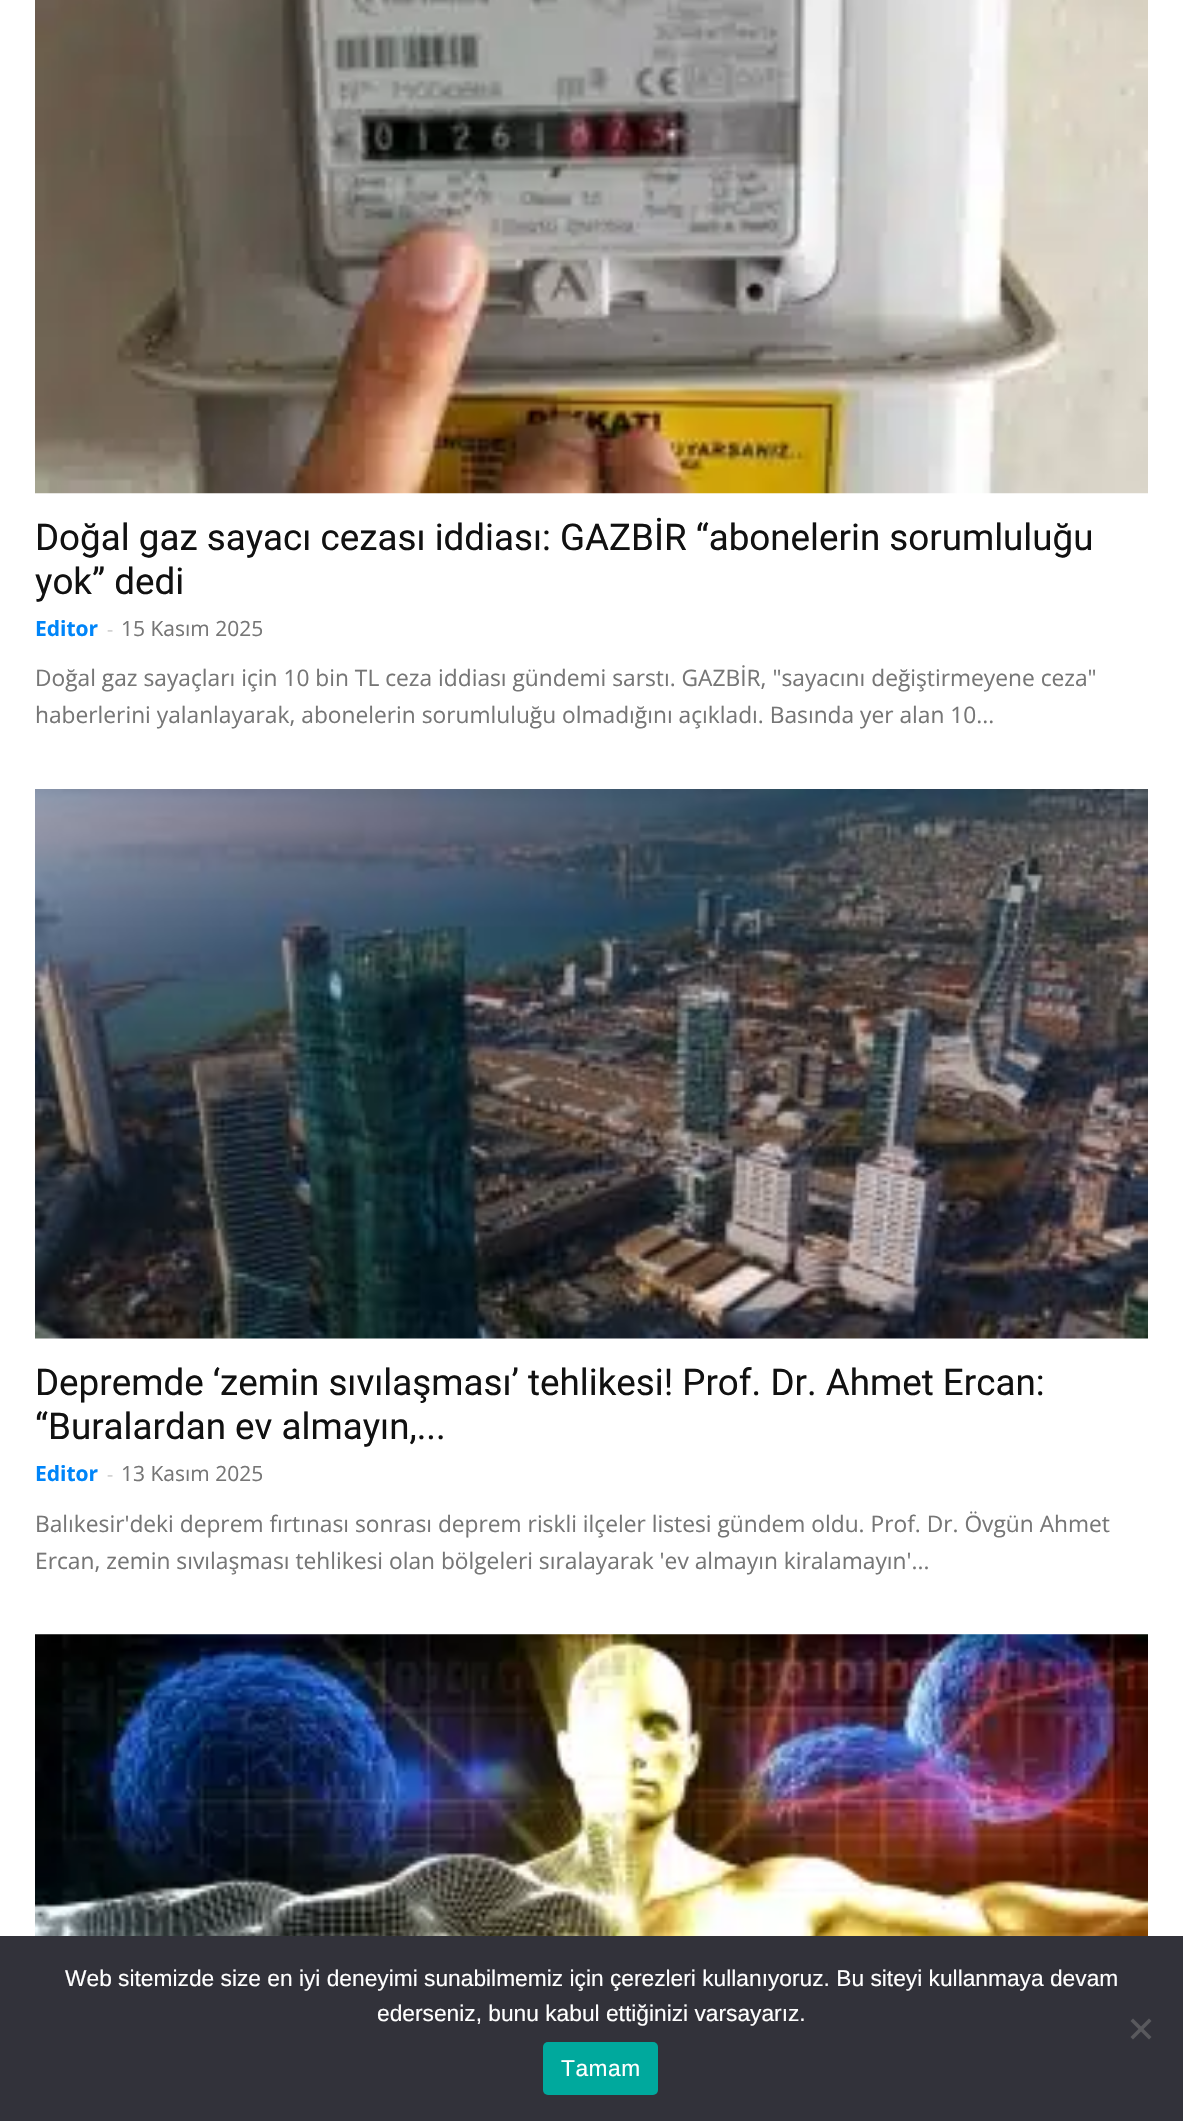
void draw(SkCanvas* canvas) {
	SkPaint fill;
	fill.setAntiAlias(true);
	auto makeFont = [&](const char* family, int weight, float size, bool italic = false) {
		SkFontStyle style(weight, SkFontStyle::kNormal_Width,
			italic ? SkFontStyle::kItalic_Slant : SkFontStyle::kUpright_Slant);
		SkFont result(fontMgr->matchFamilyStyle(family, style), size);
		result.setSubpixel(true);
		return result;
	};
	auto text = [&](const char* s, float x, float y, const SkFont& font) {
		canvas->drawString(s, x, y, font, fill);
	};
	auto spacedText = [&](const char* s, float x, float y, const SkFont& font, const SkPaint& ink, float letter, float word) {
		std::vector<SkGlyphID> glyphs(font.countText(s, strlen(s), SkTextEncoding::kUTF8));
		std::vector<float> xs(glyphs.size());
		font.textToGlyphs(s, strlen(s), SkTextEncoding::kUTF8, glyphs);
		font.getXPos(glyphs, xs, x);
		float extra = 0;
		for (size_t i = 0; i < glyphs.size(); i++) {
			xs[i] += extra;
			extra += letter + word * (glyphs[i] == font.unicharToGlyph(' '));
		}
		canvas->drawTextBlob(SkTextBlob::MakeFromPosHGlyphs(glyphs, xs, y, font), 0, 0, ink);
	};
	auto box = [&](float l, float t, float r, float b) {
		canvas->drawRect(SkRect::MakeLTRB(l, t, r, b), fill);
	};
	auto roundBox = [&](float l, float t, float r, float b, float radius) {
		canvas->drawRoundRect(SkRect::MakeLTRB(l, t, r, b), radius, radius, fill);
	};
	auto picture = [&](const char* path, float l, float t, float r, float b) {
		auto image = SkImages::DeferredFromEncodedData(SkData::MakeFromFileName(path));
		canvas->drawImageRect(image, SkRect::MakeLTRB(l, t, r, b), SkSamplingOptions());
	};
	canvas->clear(0xFFFFFFFF);
	picture("image0.png", 35, 0, 1148, 494);
	picture("image1.png", 35, 789, 1148, 1339);
	picture("image2.png", 35, 1634, 1148, 1936);
	fill.setColor(0xFF32323A);
	box(0, 1936, 1183, 2121);
	fill.setColor(0xFF59595D);
	canvas->drawPath(SkPathBuilder().moveTo(1149, 2018.5f).lineTo(1151.5f, 2021).lineTo(1133, 2039.5f).lineTo(1130.5f, 2037).close().detach(), fill);
	canvas->drawPath(SkPathBuilder().moveTo(1130.5f, 2021).lineTo(1133, 2018.5f).lineTo(1151.5f, 2037).lineTo(1149, 2039.5f).close().detach(), fill);
	fill.setColor(0xFF00A99D);
	roundBox(543, 2042, 658, 2095, 5);
	auto font1 = makeFont("Roboto", 400, 36.75f);
	fill.setColor(0xFF111111);
	text("Doğal gaz sayacı cezası iddiası: GAZBİR “abonelerin sorumluluğu", 35, 550, font1);
	text("yok” dedi", 35, 594, font1);
	auto font2 = makeFont("Open Sans", 700, 21);
	fill.setColor(0xFF0085F9);
	text("Editor", 35, 636, font2);
	auto font3 = makeFont("Open Sans", 400, 19);
	fill.setColor(0xFFCCCCCC);
	text("-", 107, 636, font3);
	auto font4 = makeFont("Open Sans", 400, 21);
	fill.setColor(0xFF767676);
	text("15 Kasım 2025", 121, 636, font4);
	auto font5 = makeFont("Open Sans", 400, 22.75f);
	text("Doğal gaz sayaçları için 10 bin TL ceza iddiası gündemi sarstı. GAZBİR, \"sayacını değiştirmeyene ceza\"", 35, 686, font5);
	text("haberlerini yalanlayarak, abonelerin sorumluluğu olmadığını açıkladı. Basında yer alan 10...", 35, 723, font5);
	fill.setColor(0xFF111111);
	text("Depremde ‘zemin sıvılaşması’ tehlikesi! Prof. Dr. Ahmet Ercan:", 35, 1395, font1);
	text("“Buralardan ev almayın,...", 35, 1439, font1);
	fill.setColor(0xFF0085F9);
	text("Editor", 35, 1481, font2);
	fill.setColor(0xFFCCCCCC);
	text("-", 107, 1481, font3);
	fill.setColor(0xFF767676);
	text("13 Kasım 2025", 121, 1481, font4);
	text("Balıkesir'deki deprem fırtınası sonrası deprem riskli ilçeler listesi gündem oldu. Prof. Dr. Övgün Ahmet", 35, 1532, font5);
	text("Ercan, zemin sıvılaşması tehlikesi olan bölgeleri sıralayarak 'ev almayın kiralamayın'...", 35, 1569, font5);
	auto font6 = makeFont("Liberation Sans", 400, 22.75f);
	fill.setColor(0xFFFFFFFF);
	text("Web sitemizde size en iyi deneyimi sunabilmemiz için çerezleri kullanıyoruz. Bu siteyi kullanmaya devam", 65, 1986, font6);
	text("ederseniz, bunu kabul ettiğinizi varsayarız.", 377, 2021, font6);
	spacedText("Tamam", 561, 2076, font6, fill, 0.5f, 0);
}
